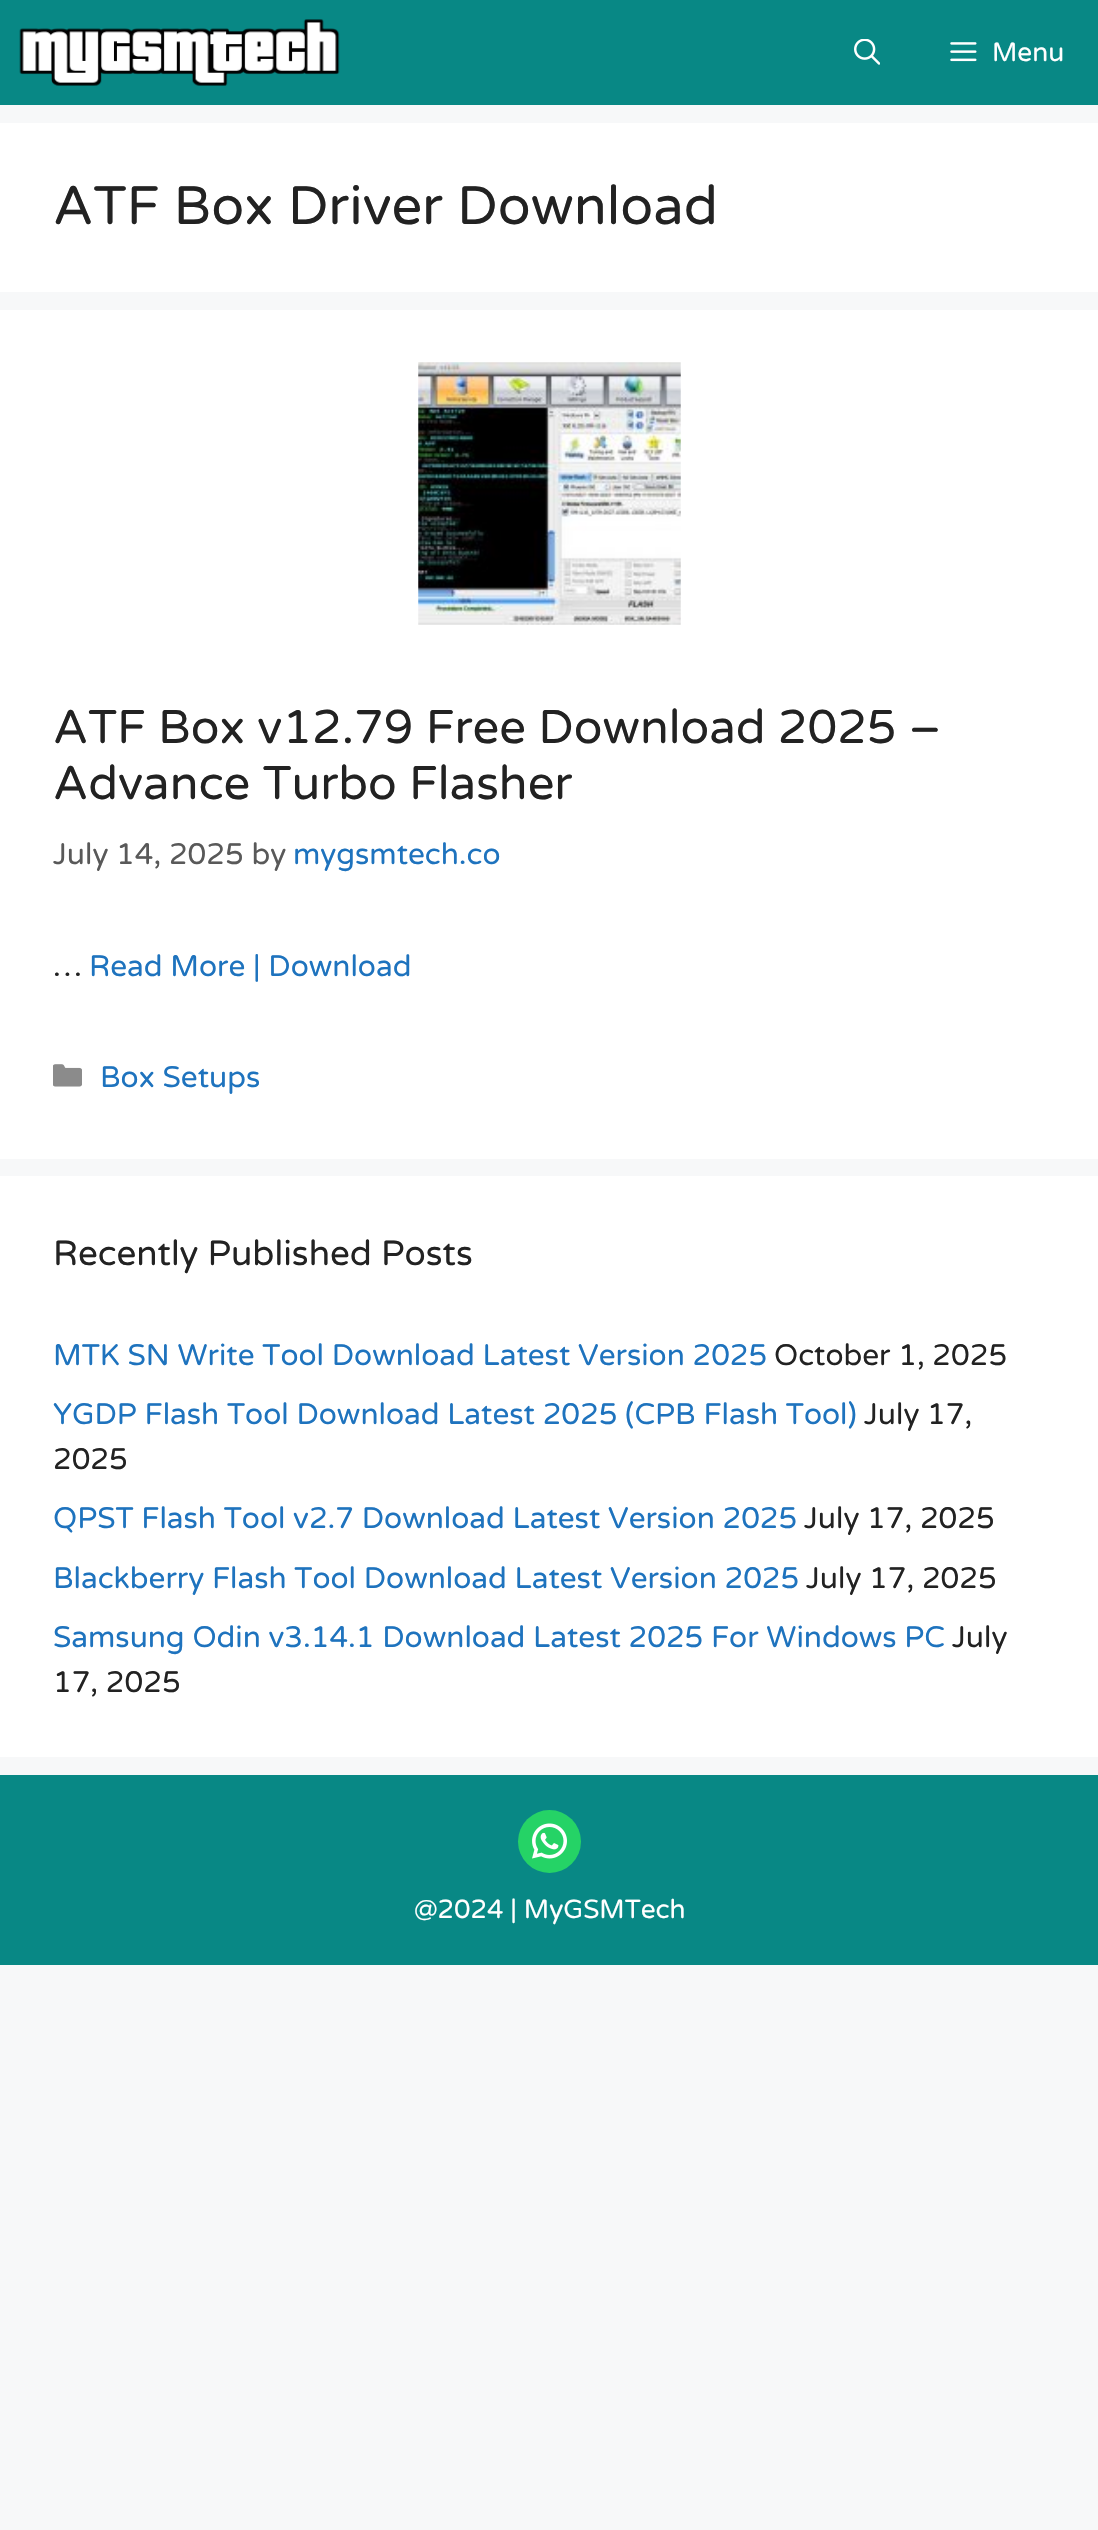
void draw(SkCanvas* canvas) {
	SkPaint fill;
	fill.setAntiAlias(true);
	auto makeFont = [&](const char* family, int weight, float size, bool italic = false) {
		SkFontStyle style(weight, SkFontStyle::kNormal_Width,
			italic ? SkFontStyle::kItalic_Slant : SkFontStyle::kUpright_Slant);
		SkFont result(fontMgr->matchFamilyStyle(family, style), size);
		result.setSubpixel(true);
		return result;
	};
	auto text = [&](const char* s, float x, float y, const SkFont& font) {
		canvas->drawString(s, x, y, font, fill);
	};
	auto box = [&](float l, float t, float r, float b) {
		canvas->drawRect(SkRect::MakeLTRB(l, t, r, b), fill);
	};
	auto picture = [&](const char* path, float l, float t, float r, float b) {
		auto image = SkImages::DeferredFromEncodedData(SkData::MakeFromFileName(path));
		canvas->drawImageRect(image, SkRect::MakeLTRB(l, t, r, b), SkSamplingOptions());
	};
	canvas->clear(0xFFF7F8F9);
	fill.setColor(0xFF088885);
	box(0, 0, 1098, 105);
	picture("image0.png", 19, 19, 340, 86);
	picture("image1.png", 854, 39, 880, 65);
	picture("image2.png", 950, 42, 977, 62);
	fill.setColor(0xFFFFFFFF);
	box(0, 123, 1098, 292);
	box(0, 310, 1098, 1159);
	picture("image3.png", 418, 362, 681, 625);
	picture("image4.png", 53, 1064, 82, 1087);
	box(0, 1176, 1098, 1757);
	fill.setColor(0xFF088885);
	box(0, 1775, 1098, 1965);
	fill.setColor(0xFF25D366);
	canvas->drawCircle(549.5f, 1841.5f, 31.5f, fill);
	picture("image5.png", 532, 1823, 567, 1859);
	auto font1 = makeFont("Varela Round", 400, 26.25f);
	fill.setColor(0xFFFFFFFF);
	text("Menu", 992, 61, font1);
	auto font2 = makeFont("Varela Round", 400, 54.25f);
	fill.setColor(0xFF222222);
	text("ATF Box Driver Download", 53, 224, font2);
	auto font3 = makeFont("Varela Round", 400, 47.25f);
	text("ATF Box v12.79 Free Download 2025 –", 53, 743, font3);
	text("Advance Turbo Flasher", 53, 799, font3);
	auto font4 = makeFont("Varela Round", 400, 29.75f);
	fill.setColor(0xFF595959);
	text("July 14, 2025 by", 53, 864, font4);
	fill.setColor(0xFF1E73BE);
	text("mygsmtech.co", 293, 864, font4);
	fill.setColor(0xFF222222);
	text("…", 53, 976, font4);
	fill.setColor(0xFF1E73BE);
	text("Read More | Download", 89, 976, font4);
	text("Box Setups", 100, 1087, font4);
	auto font5 = makeFont("Varela Round", 400, 35);
	fill.setColor(0xFF222222);
	text("Recently Published Posts", 53, 1265, font5);
	fill.setColor(0xFF1E73BE);
	text("MTK SN Write Tool Download Latest Version 2025", 53, 1365, font4);
	fill.setColor(0xFF222222);
	text("October 1, 2025", 774, 1365, font4);
	fill.setColor(0xFF1E73BE);
	text("YGDP Flash Tool Download Latest 2025 (CPB Flash Tool)", 53, 1424, font4);
	fill.setColor(0xFF222222);
	text("July 17,", 864, 1424, font4);
	text("2025", 53, 1469, font4);
	fill.setColor(0xFF1E73BE);
	text("QPST Flash Tool v2.7 Download Latest Version 2025", 53, 1528, font4);
	fill.setColor(0xFF222222);
	text("July 17, 2025", 804, 1528, font4);
	fill.setColor(0xFF1E73BE);
	text("Blackberry Flash Tool Download Latest Version 2025", 53, 1588, font4);
	fill.setColor(0xFF222222);
	text("July 17, 2025", 806, 1588, font4);
	fill.setColor(0xFF1E73BE);
	text("Samsung Odin v3.14.1 Download Latest 2025 For Windows PC", 53, 1647, font4);
	fill.setColor(0xFF222222);
	text("July", 952, 1647, font4);
	text("17, 2025", 53, 1692, font4);
	fill.setColor(0xFFFFFFFF);
	text("@2024 | MyGSMTech", 414, 1918, font1);
}
